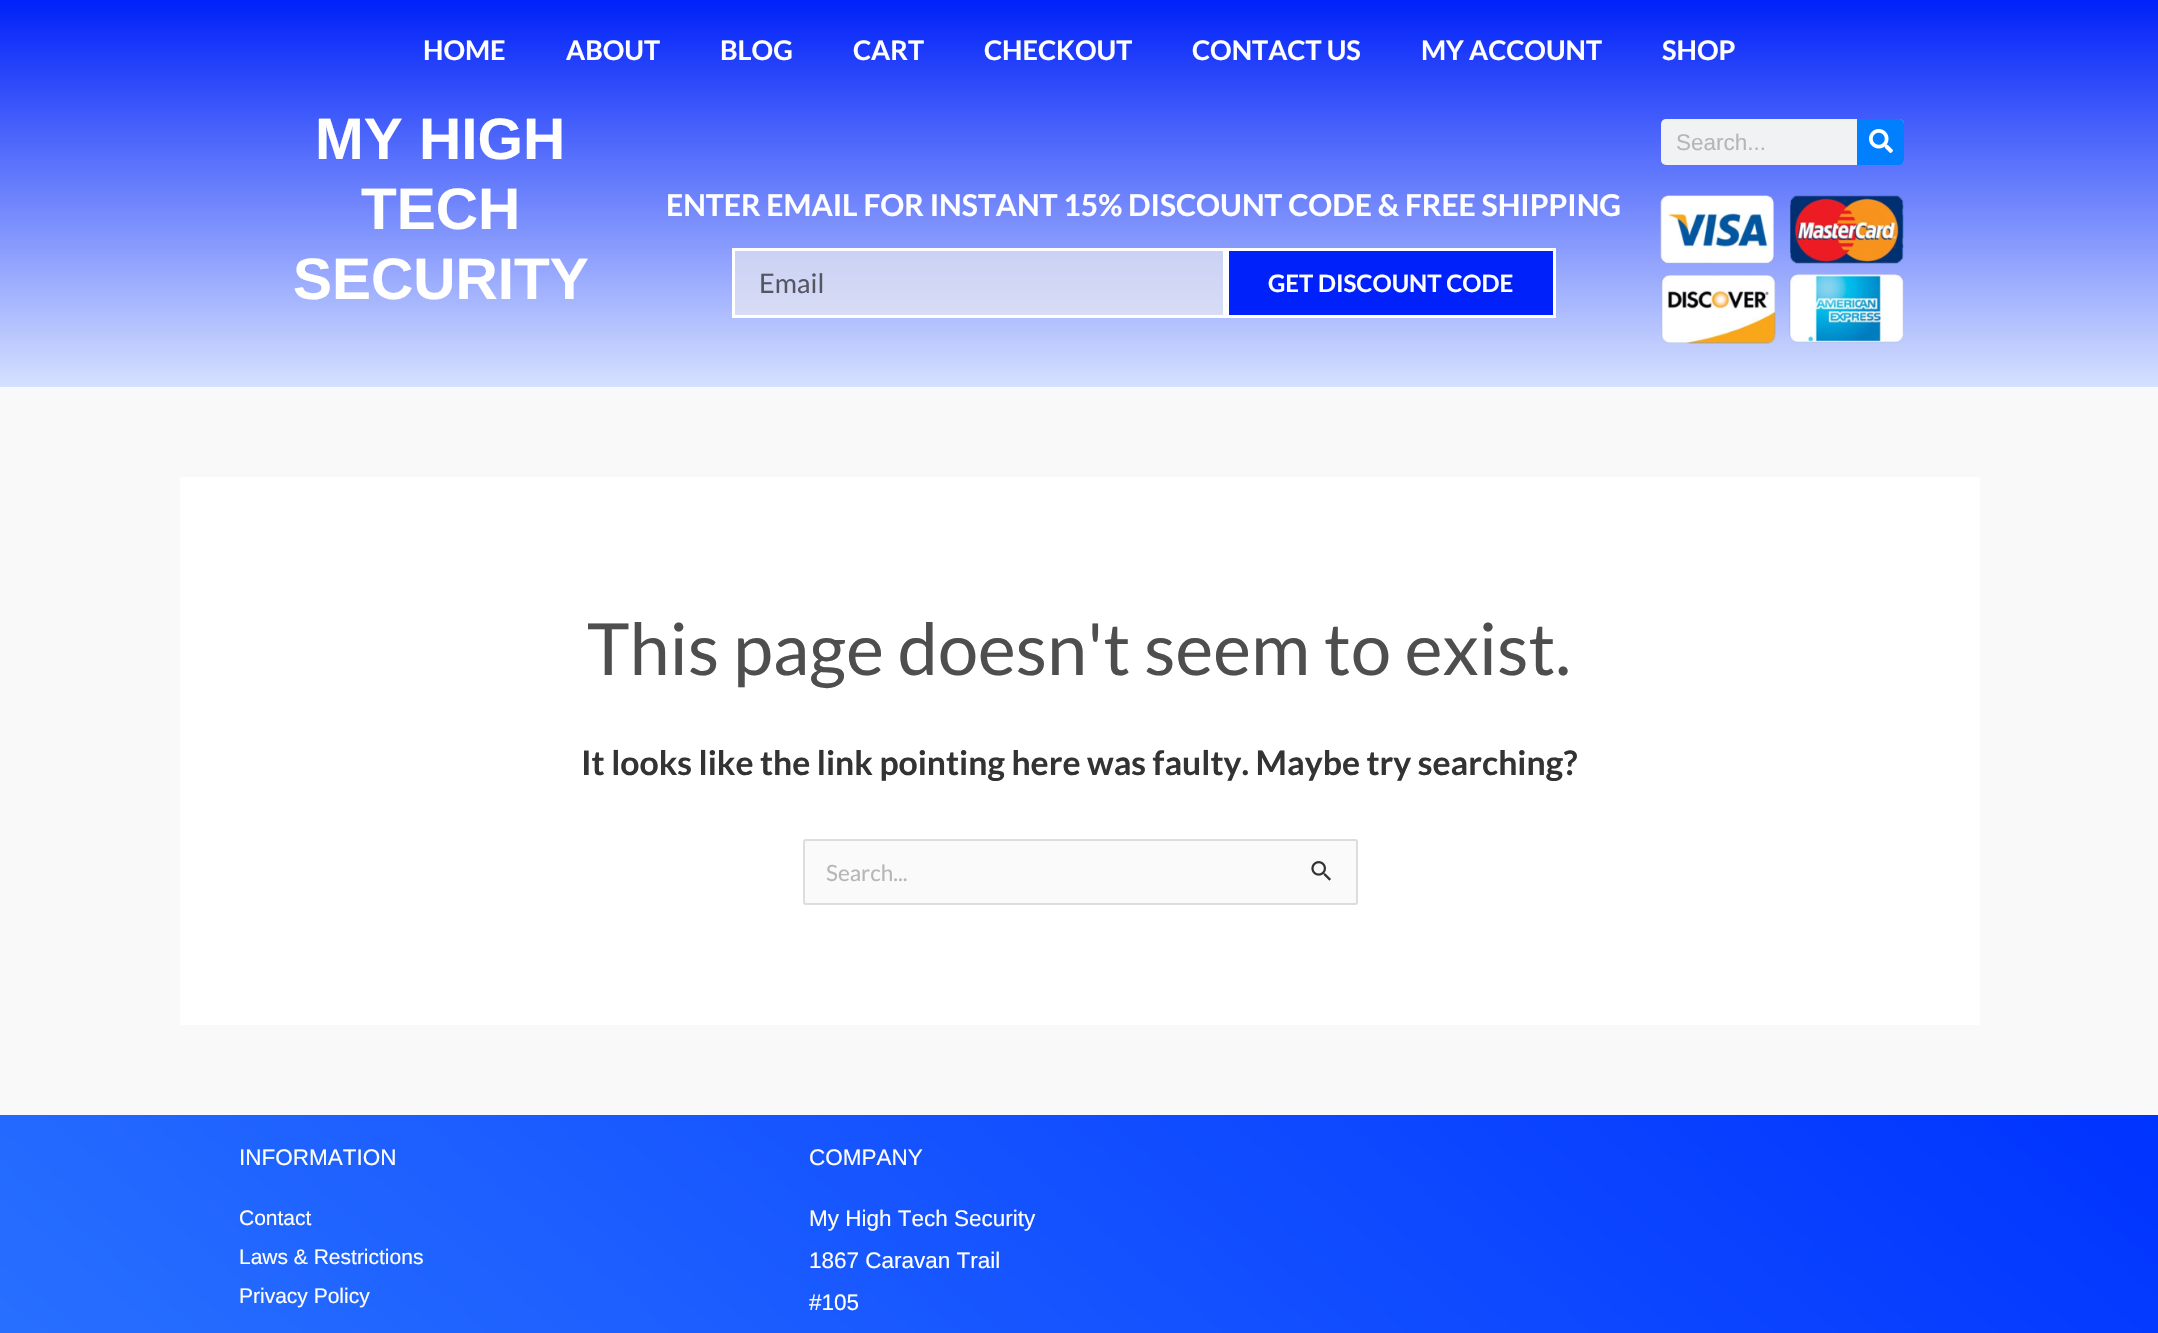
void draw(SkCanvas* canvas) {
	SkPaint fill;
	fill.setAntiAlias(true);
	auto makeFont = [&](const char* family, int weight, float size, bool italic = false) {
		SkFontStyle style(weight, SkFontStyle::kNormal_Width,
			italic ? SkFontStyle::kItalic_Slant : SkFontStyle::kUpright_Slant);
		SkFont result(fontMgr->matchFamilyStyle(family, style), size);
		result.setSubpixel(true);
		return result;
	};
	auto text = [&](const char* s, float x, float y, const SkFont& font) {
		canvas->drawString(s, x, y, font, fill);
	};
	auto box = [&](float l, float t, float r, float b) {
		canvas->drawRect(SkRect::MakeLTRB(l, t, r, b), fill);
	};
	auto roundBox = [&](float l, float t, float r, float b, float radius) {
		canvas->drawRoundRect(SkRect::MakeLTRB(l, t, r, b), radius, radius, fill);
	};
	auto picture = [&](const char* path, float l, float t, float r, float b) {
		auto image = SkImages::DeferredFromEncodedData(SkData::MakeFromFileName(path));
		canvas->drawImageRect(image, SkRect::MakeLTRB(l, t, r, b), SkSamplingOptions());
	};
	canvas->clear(0xFFF9F9F9);
	{
		const SkColor colors[] = {0xFF0021F9, 0xFFD6E1FF};
		const float stops[] = {0, 1};
		const SkPoint ends[] = {{1079, 0}, {1079, 387}};
		fill.setShader(SkGradientShader::MakeLinear(ends, colors, stops, 2, SkTileMode::kClamp));
		fill.setAlpha(255);
	}
	box(0, 0, 2158, 387);
	{
		const SkColor colors[] = {0xFF97A3F3, 0xFFE6EAF5};
		const float stops[] = {0, 1};
		const SkPoint ends[] = {{1079, 0}, {1079, 387}};
		fill.setShader(SkGradientShader::MakeLinear(ends, colors, stops, 2, SkTileMode::kClamp));
		fill.setAlpha(255);
	}
	box(735, 251, 1223, 315);
	fill.setShader(nullptr);
	fill.setColor(0xFFF1F2F3);
	roundBox(1661, 119, 1904, 165, 5);
	fill.setColor(0xFF007FFF);
	canvas->drawPath(SkPathBuilder().moveTo(1857, 119).lineTo(1899, 119).cubicTo(1902, 119, 1904, 121, 1904, 124).lineTo(1904, 160).cubicTo(1904, 163, 1902, 165, 1899, 165).lineTo(1857, 165).close().detach(), fill);
	picture("image0.png", 1869, 129, 1893, 153);
	picture("image1.png", 1660, 195, 1904, 344);
	fill.setStyle(SkPaint::kStroke_Style);
	fill.setStrokeWidth(3);
	fill.setColor(0xFFFFFFFF);
	canvas->drawRect(SkRect::MakeLTRB(733.5f, 249.5f, 1224.5f, 316.5f), fill);
	fill.setStyle(SkPaint::kFill_Style);
	fill.setColor(0xFF0021F9);
	canvas->drawRect(SkRect::MakeLTRB(1227.5f, 249.5f, 1554.5f, 316.5f), fill);
	fill.setStyle(SkPaint::kStroke_Style);
	fill.setColor(0xFFFFFFFF);
	canvas->drawRect(SkRect::MakeLTRB(1227.5f, 249.5f, 1554.5f, 316.5f), fill);
	fill.setStyle(SkPaint::kFill_Style);
	box(180, 477, 1980, 1025);
	fill.setColor(0xFFFAFAFA);
	canvas->drawRoundRect(SkRect::MakeLTRB(804, 840, 1357, 904), 2, 2, fill);
	fill.setStyle(SkPaint::kStroke_Style);
	fill.setStrokeWidth(2);
	fill.setColor(0xFFDDDDDD);
	canvas->drawRoundRect(SkRect::MakeLTRB(804, 840, 1357, 904), 2, 2, fill);
	picture("image2.png", 1311, 861, 1331, 881);
	fill.setStyle(SkPaint::kFill_Style);
	{
		const SkColor colors[] = {0xFF0033FF, 0xFF2B75FF};
		const float stops[] = {0, 1};
		const SkPoint ends[] = {{1624, 666}, {535, 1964}};
		fill.setShader(SkGradientShader::MakeLinear(ends, colors, stops, 2, SkTileMode::kClamp));
		fill.setAlpha(255);
	}
	box(0, 1115, 2158, 1333);
	auto font1 = makeFont("Lato", 700, 27);
	fill.setShader(nullptr);
	fill.setColor(0xFFFFFFFF);
	text("HOME", 423, 60, font1);
	text("ABOUT", 566, 60, font1);
	text("BLOG", 720, 60, font1);
	text("CART", 853, 60, font1);
	text("CHECKOUT", 984, 60, font1);
	text("CONTACT US", 1192, 60, font1);
	text("MY ACCOUNT", 1421, 60, font1);
	text("SHOP", 1662, 60, font1);
	auto font2 = makeFont("Liberation Sans", 700, 58.5f);
	text("MY HIGH", 315, 159, font2);
	text("TECH", 361, 229, font2);
	text("SECURITY", 293, 299, font2);
	auto font3 = makeFont("Liberation Sans", 400, 22.5f);
	fill.setColor(0xFFB6B6B7);
	text("Search...", 1676, 150, font3);
	auto font4 = makeFont("Lato", 700, 30);
	fill.setColor(0xFFFFFFFF);
	text("ENTER EMAIL FOR INSTANT 15% DISCOUNT CODE & FREE SHIPPING", 666, 216, font4);
	auto font5 = makeFont("Lato", 400, 27);
	fill.setColor(0xFF545662);
	text("Email", 759, 293, font5);
	auto font6 = makeFont("Lato", 700, 24);
	fill.setColor(0xFFFFFFFF);
	text("GET DISCOUNT CODE", 1268, 292, font6);
	auto font7 = makeFont("Lato", 400, 72);
	fill.setColor(0xFF4E4E4E);
	text("This page doesn't seem to exist.", 587, 675, font7);
	auto font8 = makeFont("Lato", 700, 33.75f);
	fill.setColor(0xFF333333);
	text("It looks like the link pointing here was faulty. Maybe try searching?", 581, 775, font8);
	auto font9 = makeFont("Lato", 400, 22.5f);
	fill.setColor(0xFFB6B6B7);
	text("Search...", 826, 881, font9);
	fill.setColor(0xFFFFFFFF);
	text("INFORMATION", 239, 1165, font3);
	auto font10 = makeFont("Liberation Sans", 400, 21);
	text("Contact", 239, 1225, font10);
	text("Laws & Restrictions", 239, 1264, font10);
	text("Privacy Policy", 239, 1303, font10);
	text("COMPANY", 809, 1165, font3);
	text("My High Tech Security", 809, 1226, font3);
	text("1867 Caravan Trail", 809, 1268, font3);
	text("#105", 809, 1310, font3);
}
